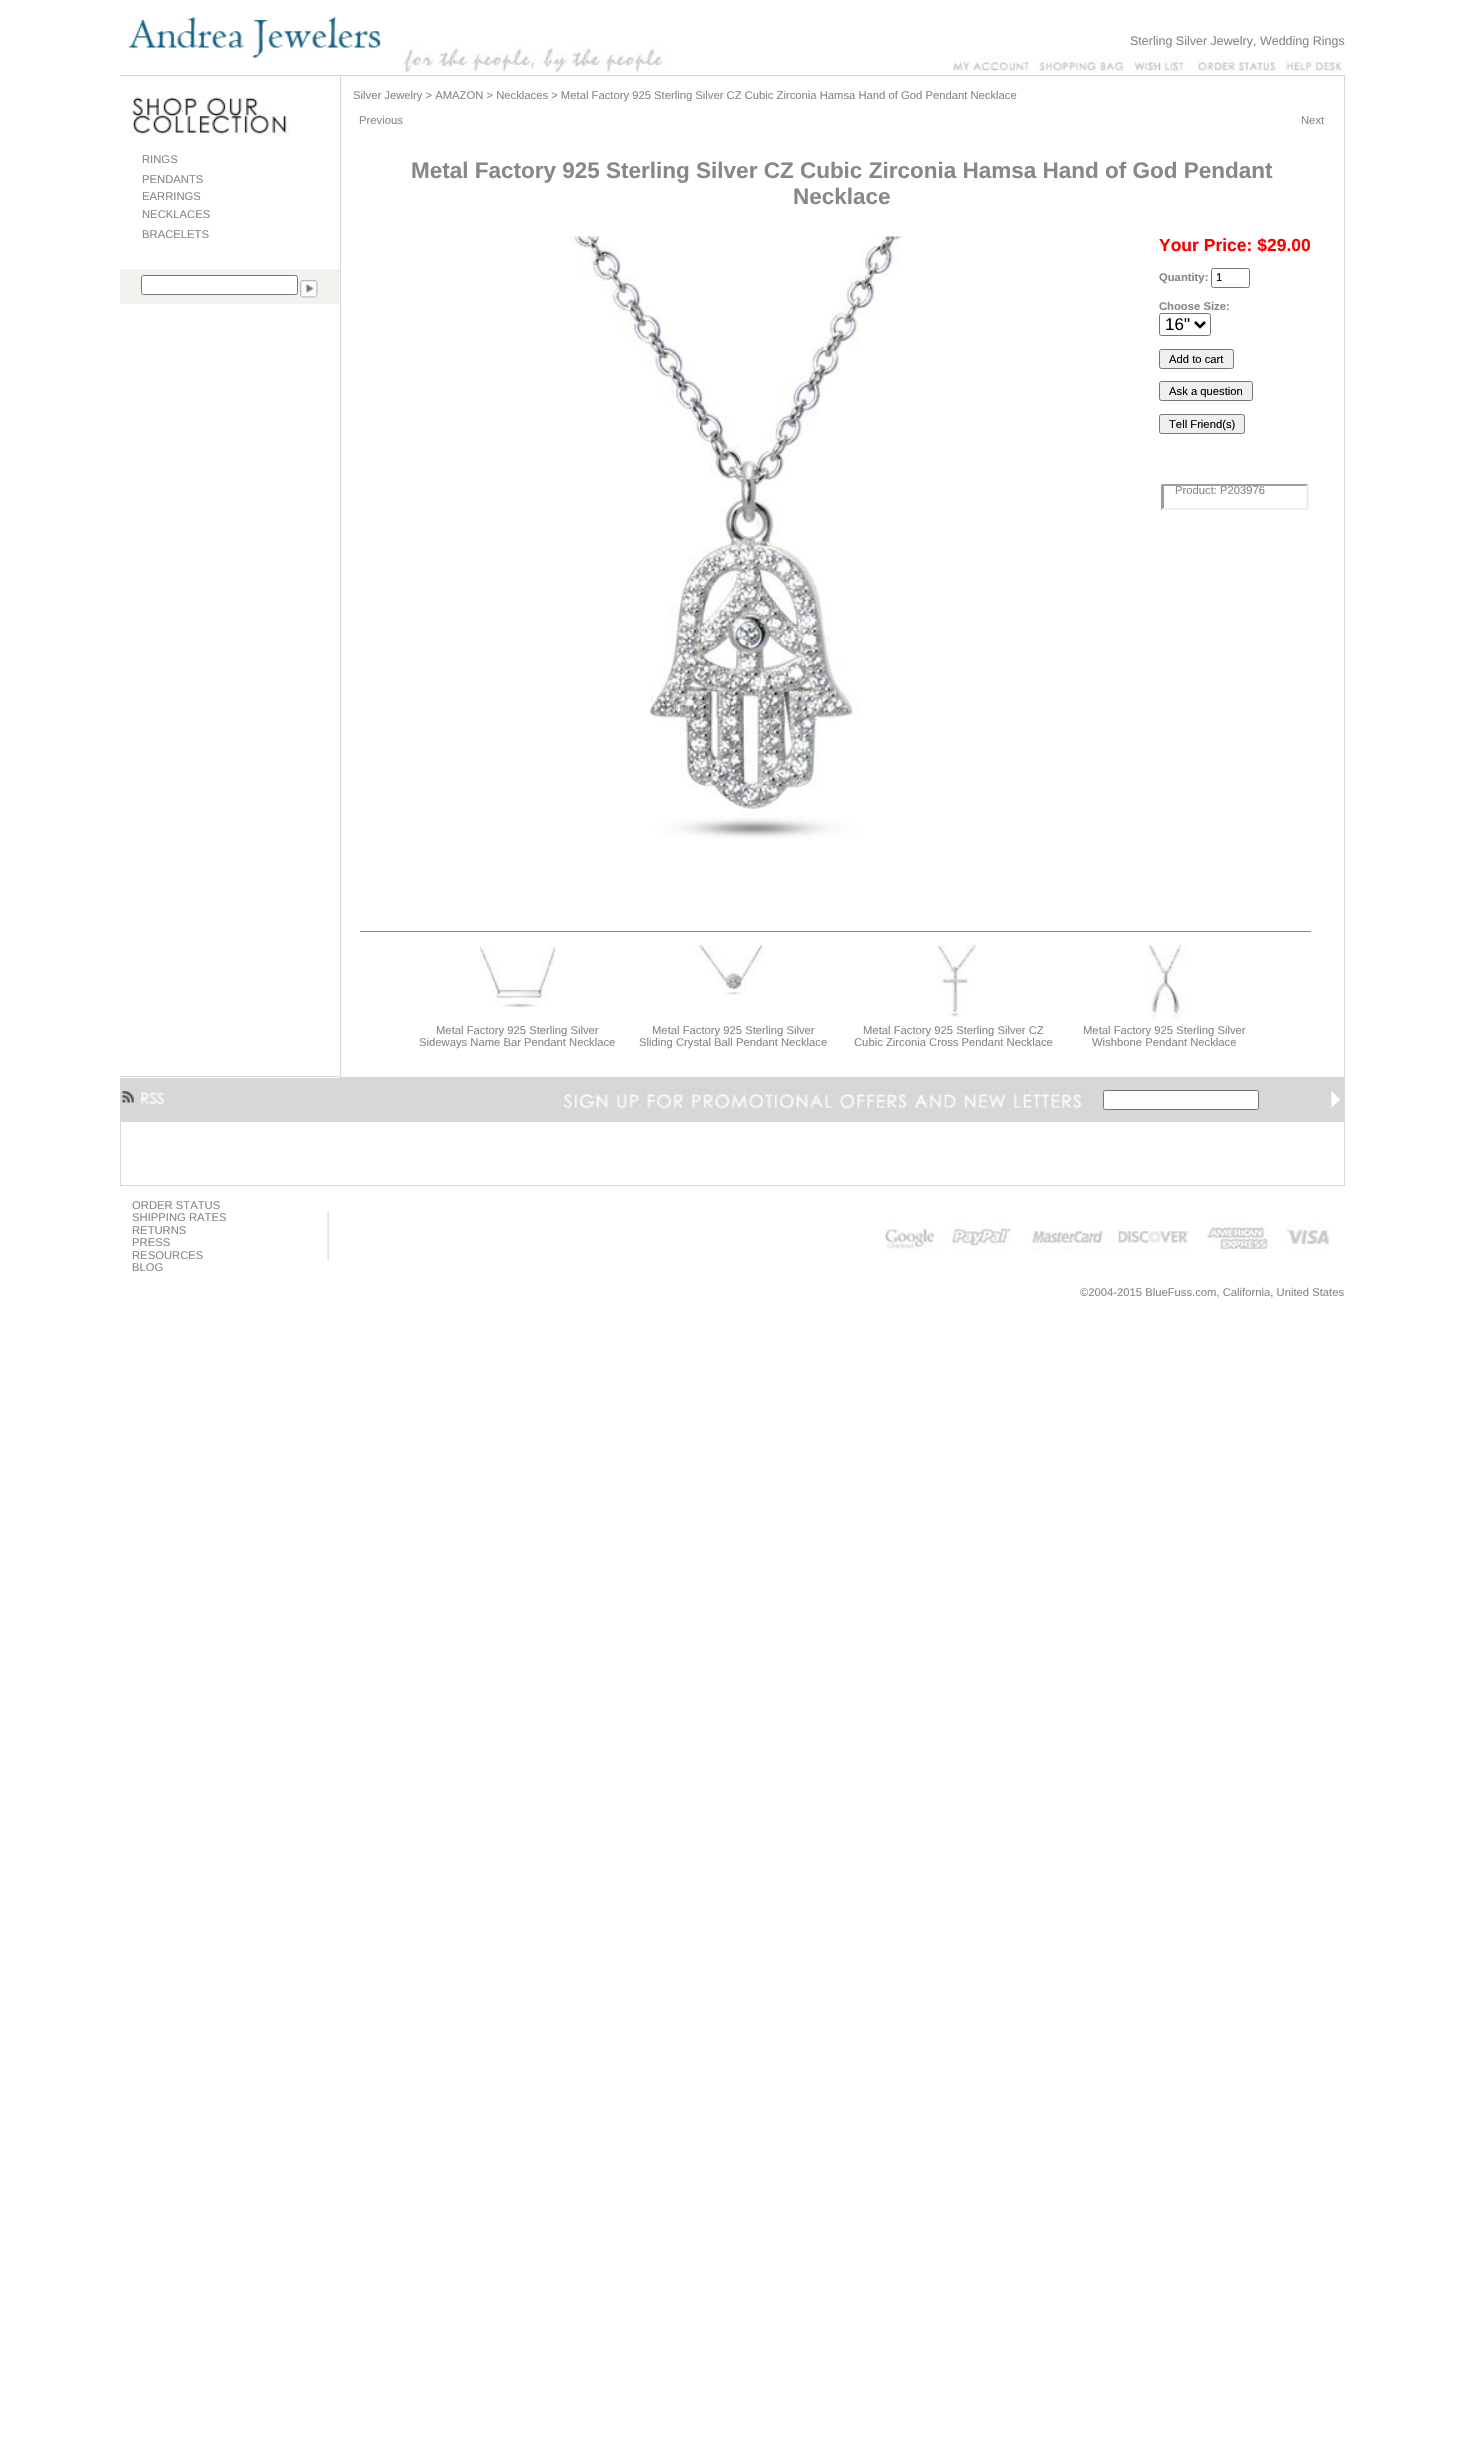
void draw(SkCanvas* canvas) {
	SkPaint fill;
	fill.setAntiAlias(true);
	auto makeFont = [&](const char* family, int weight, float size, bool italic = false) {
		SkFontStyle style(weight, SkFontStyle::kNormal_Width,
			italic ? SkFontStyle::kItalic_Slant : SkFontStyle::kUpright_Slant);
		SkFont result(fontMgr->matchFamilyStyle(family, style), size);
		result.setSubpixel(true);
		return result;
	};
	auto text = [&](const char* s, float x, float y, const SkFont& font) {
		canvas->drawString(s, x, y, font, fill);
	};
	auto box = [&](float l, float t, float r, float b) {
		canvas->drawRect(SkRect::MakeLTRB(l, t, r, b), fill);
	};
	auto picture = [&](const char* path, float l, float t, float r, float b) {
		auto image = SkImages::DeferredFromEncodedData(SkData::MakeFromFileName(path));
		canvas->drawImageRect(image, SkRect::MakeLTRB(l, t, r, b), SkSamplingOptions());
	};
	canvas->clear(0xFFFFFFFF);
	picture("image0.png", 128, 17, 381, 58);
	picture("image1.png", 401, 45, 670, 73);
	picture("image2.png", 953, 56, 1034, 75);
	picture("image3.png", 1036, 56, 1124, 75);
	picture("image4.png", 1134, 56, 1190, 75);
	picture("image5.png", 1195, 56, 1280, 75);
	picture("image6.png", 1285, 56, 1342, 75);
	fill.setColor(0xFFD7D7D7);
	box(120, 1076, 340, 1077);
	picture("image7.png", 130, 96, 290, 136);
	fill.setColor(0xFFF4F2EF);
	box(120, 269, 340, 304);
	fill.setColor(0xFFFFFFFF);
	canvas->drawRoundRect(SkRect::MakeLTRB(141.5f, 275.5f, 297.5f, 294.5f), 2, 2, fill);
	fill.setStyle(SkPaint::kStroke_Style);
	fill.setStrokeWidth(1);
	fill.setColor(0xFF767676);
	canvas->drawRoundRect(SkRect::MakeLTRB(141.5f, 275.5f, 297.5f, 294.5f), 2, 2, fill);
	picture("image8.png", 300, 280, 318, 298);
	fill.setStyle(SkPaint::kFill_Style);
	fill.setColor(0xFFD7D7D7);
	box(120, 75, 340, 76);
	fill.setStyle(SkPaint::kStroke_Style);
	canvas->drawRect(SkRect::MakeLTRB(340.5f, 75.5f, 1344.5f, 1077.5f), fill);
	picture("image9.png", 570, 236, 903, 839);
	fill.setColor(0xFF767676);
	canvas->drawRoundRect(SkRect::MakeLTRB(1211.5f, 268.5f, 1249.5f, 287.5f), 2, 2, fill);
	canvas->drawRoundRect(SkRect::MakeLTRB(1159.5f, 313.5f, 1210.5f, 335.5f), 2, 2, fill);
	fill.setStrokeWidth(2.5f);
	fill.setColor(0xFF000000);
	canvas->drawPath(SkPathBuilder().moveTo(1195, 322).lineTo(1200, 327).lineTo(1205, 322).detach(), fill);
	fill.setStyle(SkPaint::kFill_Style);
	fill.setColor(0xFFEFEFEF);
	canvas->drawRoundRect(SkRect::MakeLTRB(1159.5f, 349.5f, 1233.5f, 368.5f), 2, 2, fill);
	fill.setStyle(SkPaint::kStroke_Style);
	fill.setStrokeWidth(1);
	fill.setColor(0xFF767676);
	canvas->drawRoundRect(SkRect::MakeLTRB(1159.5f, 349.5f, 1233.5f, 368.5f), 2, 2, fill);
	fill.setStyle(SkPaint::kFill_Style);
	fill.setColor(0xFFEFEFEF);
	canvas->drawRoundRect(SkRect::MakeLTRB(1159.5f, 381.5f, 1252.5f, 400.5f), 2, 2, fill);
	fill.setStyle(SkPaint::kStroke_Style);
	fill.setColor(0xFF767676);
	canvas->drawRoundRect(SkRect::MakeLTRB(1159.5f, 381.5f, 1252.5f, 400.5f), 2, 2, fill);
	fill.setStyle(SkPaint::kFill_Style);
	fill.setColor(0xFFEFEFEF);
	canvas->drawRoundRect(SkRect::MakeLTRB(1159.5f, 414.5f, 1244.5f, 433.5f), 2, 2, fill);
	fill.setStyle(SkPaint::kStroke_Style);
	fill.setColor(0xFF767676);
	canvas->drawRoundRect(SkRect::MakeLTRB(1159.5f, 414.5f, 1244.5f, 433.5f), 2, 2, fill);
	fill.setStyle(SkPaint::kFill_Style);
	fill.setColor(0xFF9F9F9F);
	canvas->drawPath(SkPathBuilder().moveTo(1161, 484).lineTo(1309, 484).lineTo(1306, 486).lineTo(1164, 486).close().detach(), fill);
	fill.setColor(0xFFEFEFEF);
	canvas->drawPath(SkPathBuilder().moveTo(1309, 484).lineTo(1309, 510).lineTo(1306, 507.5f).lineTo(1306, 486).close().detach(), fill);
	canvas->drawPath(SkPathBuilder().moveTo(1309, 510).lineTo(1161, 510).lineTo(1164, 508).lineTo(1306, 508).close().detach(), fill);
	fill.setColor(0xFF9F9F9F);
	canvas->drawPath(SkPathBuilder().moveTo(1161, 510).lineTo(1161, 484).lineTo(1164, 486).lineTo(1164, 507.5f).close().detach(), fill);
	fill.setColor(0xFF888888);
	box(360, 931, 1311, 932);
	picture("image10.png", 480, 945, 555, 1008);
	picture("image11.png", 695, 945, 765, 995);
	picture("image12.png", 937, 945, 977, 1017);
	picture("image13.png", 1147, 945, 1186, 1019);
	fill.setColor(0xFFD7D7D7);
	box(120, 1078, 1345, 1121);
	picture("image14.png", 122, 1091, 164, 1105);
	picture("image15.png", 559, 1088, 1087, 1110);
	fill.setColor(0xFFFFFFFF);
	canvas->drawRoundRect(SkRect::MakeLTRB(1103.5f, 1090.5f, 1258.5f, 1109.5f), 2, 2, fill);
	fill.setStyle(SkPaint::kStroke_Style);
	fill.setColor(0xFF767676);
	canvas->drawRoundRect(SkRect::MakeLTRB(1103.5f, 1090.5f, 1258.5f, 1109.5f), 2, 2, fill);
	picture("image16.png", 1331, 1091, 1340, 1108);
	fill.setColor(0xFFD7D7D7);
	canvas->drawRect(SkRect::MakeLTRB(120.5f, 1121.5f, 1344.5f, 1185.5f), fill);
	picture("image17.png", 327, 1211, 329, 1262);
	picture("image18.png", 884, 1223, 1329, 1251);
	auto font1 = makeFont("Liberation Sans", 400, 12.5f);
	fill.setStyle(SkPaint::kFill_Style);
	fill.setColor(0xFF888888);
	text("Sterling Silver Jewelry, Wedding Rings", 1130, 45, font1);
	auto font2 = makeFont("Liberation Sans", 400, 11.25f);
	text("RINGS", 142, 163, font2);
	text("PENDANTS", 142, 183, font2);
	text("EARRINGS", 142, 200, font2);
	text("NECKLACES", 142, 218, font2);
	text("BRACELETS", 142, 238, font2);
	text("Silver Jewelry > AMAZON > Necklaces > Metal Factory 925 Sterling Silver CZ Cubic Zirconia Hamsa Hand of God Pendant Necklace", 353, 99, font2);
	text("Previous", 359, 124, font2);
	text("Next", 1301, 124, font2);
	auto font3 = makeFont("Liberation Sans", 700, 22.5f);
	text("Metal Factory 925 Sterling Silver CZ Cubic Zirconia Hamsa Hand of God Pendant", 411, 178, font3);
	text("Necklace", 793, 204, font3);
	auto font4 = makeFont("Liberation Sans", 700, 17.5f);
	fill.setColor(0xFFFF0000);
	text("Your Price: $29.00", 1159, 251, font4);
	auto font5 = makeFont("Liberation Sans", 700, 11.25f);
	fill.setColor(0xFF888888);
	text("Quantity:", 1159, 281, font5);
	fill.setColor(0xFF000000);
	text("1", 1216, 281, font2);
	fill.setColor(0xFF888888);
	text("Choose Size:", 1159, 310, font5);
	auto font6 = makeFont("Liberation Sans", 400, 17);
	fill.setColor(0xFF000000);
	text("16\"", 1165, 330, font6);
	text("Add to cart", 1169, 363, font2);
	text("Ask a question", 1169, 395, font2);
	text("Tell Friend(s)", 1169, 428, font2);
	fill.setColor(0xFF888888);
	text("Product: P203976", 1175, 494, font2);
	text("Metal Factory 925 Sterling Silver", 436, 1034, font2);
	text("Sideways Name Bar Pendant Necklace", 419, 1046, font2);
	text("Metal Factory 925 Sterling Silver", 652, 1034, font2);
	text("Sliding Crystal Ball Pendant Necklace", 639, 1046, font2);
	text("Metal Factory 925 Sterling Silver CZ", 863, 1034, font2);
	text("Cubic Zirconia Cross Pendant Necklace", 854, 1046, font2);
	text("Metal Factory 925 Sterling Silver", 1083, 1034, font2);
	text("Wishbone Pendant Necklace", 1092, 1046, font2);
	text("ORDER STATUS", 132, 1209, font2);
	text("SHIPPING RATES", 132, 1221, font2);
	text("RETURNS", 132, 1234, font2);
	text("PRESS", 132, 1246, font2);
	text("RESOURCES", 132, 1259, font2);
	text("BLOG", 132, 1271, font2);
	text("©2004-2015 BlueFuss.com, California, United States", 1080, 1296, font2);
}
